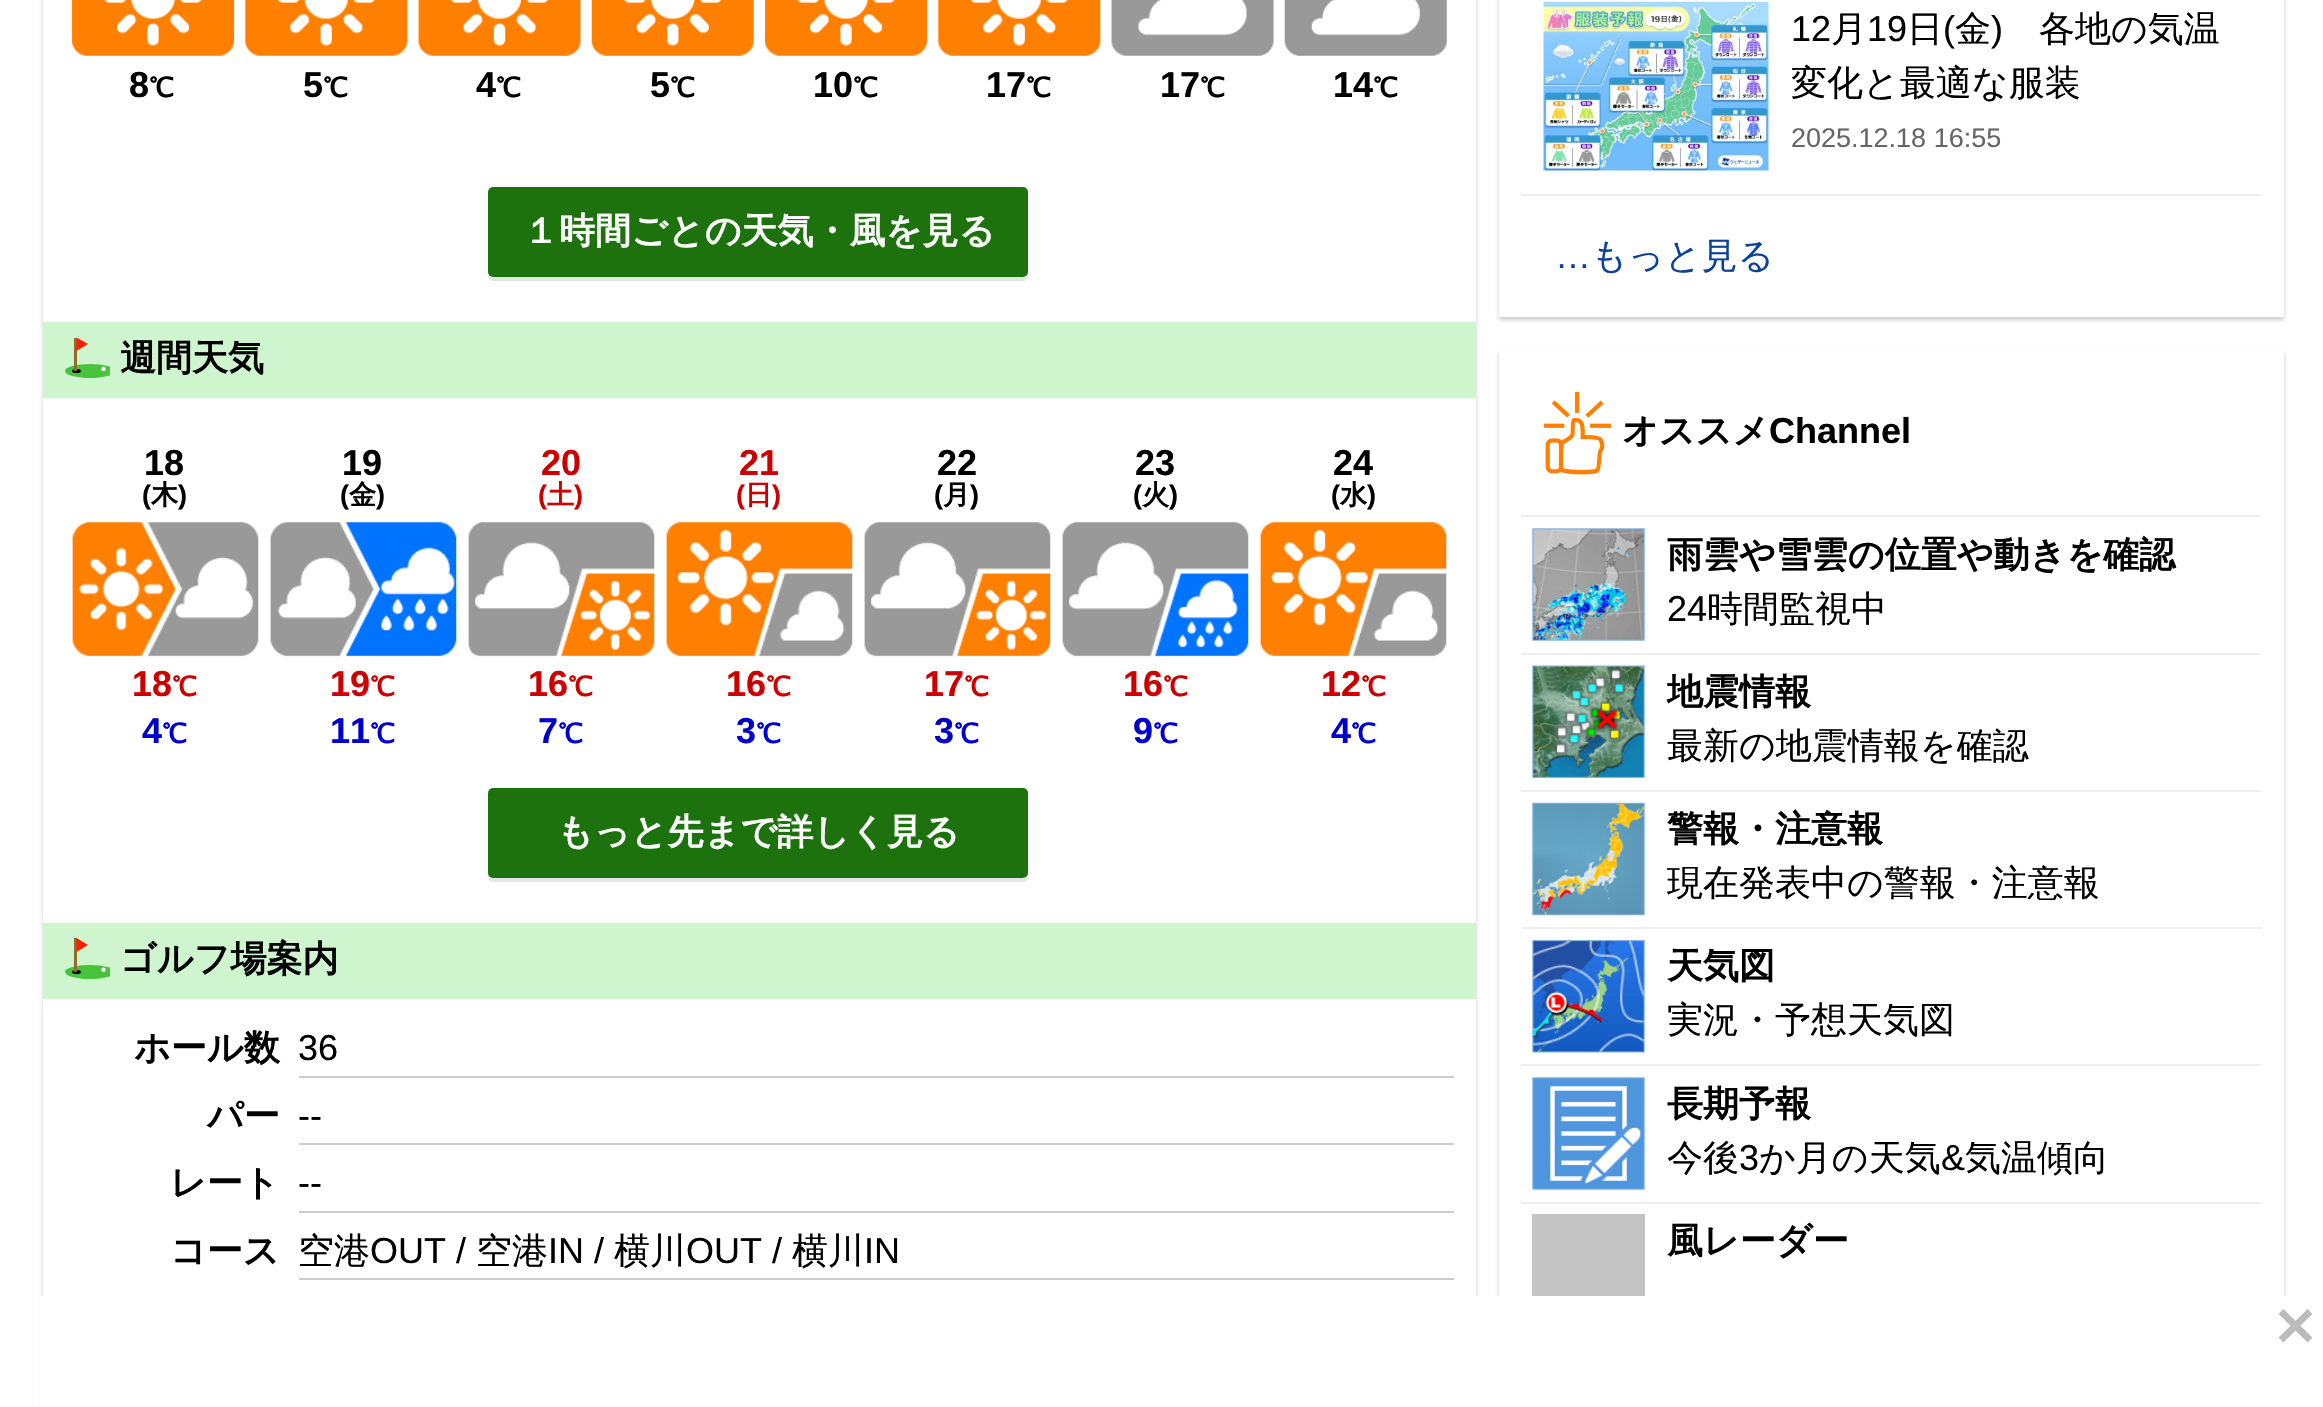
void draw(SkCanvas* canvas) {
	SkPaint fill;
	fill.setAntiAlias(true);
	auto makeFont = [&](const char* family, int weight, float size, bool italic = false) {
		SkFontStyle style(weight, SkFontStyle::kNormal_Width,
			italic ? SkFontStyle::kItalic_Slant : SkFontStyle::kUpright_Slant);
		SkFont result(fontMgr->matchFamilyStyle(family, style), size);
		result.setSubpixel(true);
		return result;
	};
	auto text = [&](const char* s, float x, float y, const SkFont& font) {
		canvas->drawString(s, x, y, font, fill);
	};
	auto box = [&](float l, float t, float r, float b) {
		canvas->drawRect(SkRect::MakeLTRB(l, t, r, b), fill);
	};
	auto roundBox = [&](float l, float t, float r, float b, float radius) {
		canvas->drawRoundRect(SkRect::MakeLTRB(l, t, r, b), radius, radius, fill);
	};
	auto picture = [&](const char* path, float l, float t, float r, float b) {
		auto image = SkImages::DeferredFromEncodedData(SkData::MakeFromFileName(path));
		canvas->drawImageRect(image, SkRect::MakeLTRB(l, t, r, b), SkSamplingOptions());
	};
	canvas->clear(0xFFFFFFFF);
	canvas->save();
	canvas->clipPath(SkPathBuilder(SkPathFillType::kEvenOdd).moveTo(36, 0).lineTo(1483, 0).lineTo(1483, 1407).lineTo(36, 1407).close().moveTo(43, -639).lineTo(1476, -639).lineTo(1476, 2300).lineTo(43, 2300).close().detach(), true);
	fill.setColor(0x33000000);
	fill.setMaskFilter(SkMaskFilter::MakeBlur(kNormal_SkBlurStyle, 2));
	canvas->drawRect(SkRect::MakeLTRB(43, -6, 1476, 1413), fill);
	fill.setMaskFilter(nullptr);
	canvas->restore();
	picture("image0.png", 72, 0, 235, 56);
	picture("image1.png", 245, 0, 408, 56);
	picture("image2.png", 418, 0, 581, 56);
	picture("image3.png", 591, 0, 754, 56);
	picture("image0.png", 765, 0, 928, 56);
	picture("image4.png", 938, 0, 1101, 56);
	picture("image5.png", 1111, 0, 1274, 56);
	picture("image6.png", 1284, 0, 1447, 56);
	fill.setColor(0xFFE6E6E6);
	canvas->drawPath(SkPathBuilder().moveTo(488, 194).lineTo(488, 276).cubicTo(488, 279, 490, 281, 493, 281).lineTo(1023, 281).cubicTo(1026, 281, 1028, 279, 1028, 276).lineTo(1028, 274).cubicTo(1027, 275, 1026, 277, 1024, 277).lineTo(493, 277).cubicTo(490, 277, 488, 275, 488, 272).close().detach(), fill);
	fill.setColor(0xFF1E720E);
	roundBox(488, 187, 1028, 277, 5);
	fill.setColor(0xFFCEF5CE);
	box(43, 322, 1476, 398);
	canvas->save();
	canvas->clipRect(SkRect::MakeLTRB(65, 338, 110, 378));
	fill.setColor(0xFF48C33C);
	canvas->drawOval(SkRect::MakeLTRB(65, 364, 115, 378), fill);
	canvas->restore();
	fill.setColor(0xFFFFFFFF);
	canvas->drawCircle(103.5f, 369, 2.2f, fill);
	fill.setColor(0xFF000000);
	canvas->drawOval(SkRect::MakeLTRB(72, 369, 81, 373), fill);
	fill.setColor(0xFF906E29);
	box(74, 338, 77, 371);
	fill.setColor(0xFFFF1C03);
	canvas->drawPath(SkPathBuilder(SkPathFillType::kEvenOdd).moveTo(88, 344).lineTo(76.5f, 351).lineTo(76.5f, 337.5f).close().detach(), fill);
	picture("image7.png", 72, 522, 259, 657);
	picture("image8.png", 270, 522, 458, 657);
	picture("image9.png", 468, 522, 655, 657);
	picture("image10.png", 666, 522, 854, 657);
	picture("image9.png", 864, 522, 1051, 657);
	picture("image11.png", 1062, 522, 1249, 657);
	picture("image10.png", 1260, 522, 1448, 657);
	fill.setColor(0xFFE6E6E6);
	canvas->drawPath(SkPathBuilder().moveTo(488, 795).lineTo(488, 877).cubicTo(488, 880, 490, 882, 493, 882).lineTo(1023, 882).cubicTo(1026, 882, 1028, 880, 1028, 877).lineTo(1028, 874).cubicTo(1027, 876, 1026, 878, 1024, 878).lineTo(493, 878).cubicTo(490, 878, 488, 875, 488, 873).close().detach(), fill);
	fill.setColor(0xFF1E720E);
	roundBox(488, 788, 1028, 878, 5);
	fill.setColor(0xFFCEF5CE);
	box(43, 923, 1476, 999);
	canvas->save();
	canvas->clipRect(SkRect::MakeLTRB(65, 938, 110, 979));
	fill.setColor(0xFF48C33C);
	canvas->drawOval(SkRect::MakeLTRB(65, 965, 115, 979), fill);
	canvas->restore();
	fill.setColor(0xFFFFFFFF);
	canvas->drawCircle(103.5f, 969.8f, 2.2f, fill);
	fill.setColor(0xFF000000);
	canvas->drawOval(SkRect::MakeLTRB(72, 970, 81, 974), fill);
	fill.setColor(0xFF906E29);
	box(74, 938, 77, 972);
	fill.setColor(0xFFFF1C03);
	canvas->drawPath(SkPathBuilder(SkPathFillType::kEvenOdd).moveTo(88, 945).lineTo(76.5f, 952).lineTo(76.5f, 938).close().detach(), fill);
	fill.setColor(0xFFCCCCCC);
	box(299, 1076, 1454, 1078);
	box(299, 1143, 1454, 1145);
	box(299, 1211, 1454, 1213);
	box(299, 1278, 1454, 1280);
	fill.setColor(0x33000000);
	fill.setMaskFilter(SkMaskFilter::MakeBlur(kNormal_SkBlurStyle, 2));
	canvas->drawRect(SkRect::MakeLTRB(1499, -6, 2284, 320), fill);
	fill.setMaskFilter(nullptr);
	fill.setColor(0xFFFFFFFF);
	box(1499, 0, 2284, 317);
	fill.setColor(0xFFEEEEEE);
	box(1521, 194, 2261, 196);
	picture("image12.png", 1543, 1, 1769, 171);
	fill.setColor(0x33000000);
	fill.setMaskFilter(SkMaskFilter::MakeBlur(kNormal_SkBlurStyle, 2));
	canvas->drawRect(SkRect::MakeLTRB(1499, 353, 2284, 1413), fill);
	fill.setMaskFilter(nullptr);
	fill.setColor(0xFFFFFFFF);
	box(1499, 351, 2284, 1296);
	picture("image13.png", 1544, 392, 1611, 475);
	fill.setColor(0xFFEEEEEE);
	box(1521, 515, 2261, 517);
	box(1521, 653, 2261, 655);
	picture("image14.png", 1532, 528, 1645, 641);
	box(1521, 790, 2261, 792);
	picture("image15.png", 1532, 665, 1645, 778);
	box(1521, 927, 2261, 929);
	picture("image16.png", 1532, 802, 1645, 916);
	box(1521, 1064, 2261, 1066);
	picture("image17.png", 1532, 940, 1645, 1053);
	box(1521, 1202, 2261, 1204);
	picture("image18.png", 1532, 1077, 1645, 1190);
	fill.setColor(0xFFC3C3C3);
	box(1532, 1214, 1645, 1296);
	fill.setColor(0xFFFFFFFF);
	box(40, 1296, 2287, 1407);
	fill.setStyle(SkPaint::kStroke_Style);
	fill.setStrokeWidth(6.8f);
	fill.setColor(0xFFBBBBBB);
	canvas->drawPath(SkPathBuilder().moveTo(2281, 1311.5f).lineTo(2310, 1340).moveTo(2310, 1311.5f).lineTo(2281, 1340).detach(), fill);
	auto font1 = makeFont("Liberation Sans", 700, 36);
	fill.setStyle(SkPaint::kFill_Style);
	fill.setColor(0xFF000000);
	text("8", 129, 97, font1);
	auto font2 = makeFont("WenQuanYi Zen Hei", 700, 27);
	text("℃", 149, 97, font2);
	text("5", 303, 97, font1);
	text("℃", 323, 97, font2);
	text("4", 476, 97, font1);
	text("℃", 496, 97, font2);
	text("5", 650, 97, font1);
	text("℃", 670, 97, font2);
	text("10", 813, 97, font1);
	text("℃", 853, 97, font2);
	text("17", 986, 97, font1);
	text("℃", 1026, 97, font2);
	text("17", 1160, 97, font1);
	text("℃", 1200, 97, font2);
	text("14", 1333, 97, font1);
	text("℃", 1373, 97, font2);
	auto font3 = makeFont("WenQuanYi Zen Hei", 700, 36);
	fill.setColor(0xFFFFFFFF);
	text("１時間ごとの天気・風を見る", 523, 243, font3);
	fill.setColor(0xFF000000);
	text("週間天気", 120, 370, font3);
	text("18", 144, 475, font1);
	auto font4 = makeFont("Liberation Sans", 700, 27);
	text("(", 142, 504, font4);
	text("木", 151, 504, font2);
	text(")", 178, 504, font4);
	fill.setColor(0xFFCC0000);
	text("18", 132, 696, font1);
	text("℃", 172, 696, font2);
	fill.setColor(0xFF0000CC);
	text("4", 142, 743, font1);
	text("℃", 162, 743, font2);
	fill.setColor(0xFF000000);
	text("19", 342, 475, font1);
	text("(", 340, 504, font4);
	text("金", 349, 504, font2);
	text(")", 376, 504, font4);
	fill.setColor(0xFFCC0000);
	text("19", 330, 696, font1);
	text("℃", 370, 696, font2);
	fill.setColor(0xFF0000CC);
	text("11", 330, 743, font1);
	text("℃", 370, 743, font2);
	fill.setColor(0xFFCC0000);
	text("20", 541, 475, font1);
	text("(", 538, 504, font4);
	text("土", 547, 504, font2);
	text(")", 574, 504, font4);
	text("16", 528, 696, font1);
	text("℃", 568, 696, font2);
	fill.setColor(0xFF0000CC);
	text("7", 538, 743, font1);
	text("℃", 558, 743, font2);
	fill.setColor(0xFFCC0000);
	text("21", 739, 475, font1);
	text("(", 736, 504, font4);
	text("日", 745, 504, font2);
	text(")", 772, 504, font4);
	text("16", 726, 696, font1);
	text("℃", 766, 696, font2);
	fill.setColor(0xFF0000CC);
	text("3", 736, 743, font1);
	text("℃", 756, 743, font2);
	fill.setColor(0xFF000000);
	text("22", 937, 475, font1);
	text("(", 934, 504, font4);
	text("月", 943, 504, font2);
	text(")", 970, 504, font4);
	fill.setColor(0xFFCC0000);
	text("17", 924, 696, font1);
	text("℃", 964, 696, font2);
	fill.setColor(0xFF0000CC);
	text("3", 934, 743, font1);
	text("℃", 954, 743, font2);
	fill.setColor(0xFF000000);
	text("23", 1135, 475, font1);
	text("(", 1133, 504, font4);
	text("火", 1142, 504, font2);
	text(")", 1169, 504, font4);
	fill.setColor(0xFFCC0000);
	text("16", 1123, 696, font1);
	text("℃", 1163, 696, font2);
	fill.setColor(0xFF0000CC);
	text("9", 1133, 743, font1);
	text("℃", 1153, 743, font2);
	fill.setColor(0xFF000000);
	text("24", 1333, 475, font1);
	text("(", 1331, 504, font4);
	text("水", 1340, 504, font2);
	text(")", 1367, 504, font4);
	fill.setColor(0xFFCC0000);
	text("12", 1321, 696, font1);
	text("℃", 1361, 696, font2);
	fill.setColor(0xFF0000CC);
	text("4", 1331, 743, font1);
	text("℃", 1351, 743, font2);
	fill.setColor(0xFFFFFFFF);
	text("もっと先まで詳しく見る", 557, 844, font3);
	fill.setColor(0xFF000000);
	text("ゴルフ場案内", 120, 971, font3);
	text("ホール数", 134, 1060, font3);
	auto font5 = makeFont("Liberation Sans", 400, 36);
	text("36", 298, 1060, font5);
	text("パー", 207, 1128, font3);
	text("--", 298, 1128, font5);
	text("レート", 170, 1195, font3);
	text("--", 298, 1195, font5);
	text("コース", 170, 1263, font3);
	auto font6 = makeFont("WenQuanYi Zen Hei", 500, 36);
	text("空港", 298, 1263, font6);
	text("OUT /", 370, 1263, font5);
	text("空港", 476, 1263, font6);
	text("IN /", 548, 1263, font5);
	text("横川", 614, 1263, font6);
	text("OUT /", 686, 1263, font5);
	text("横川", 792, 1263, font6);
	text("IN", 864, 1263, font5);
	text("12", 1791, 41, font5);
	text("月", 1831, 41, font6);
	text("19", 1867, 41, font5);
	text("日", 1907, 41, font6);
	text("(", 1943, 41, font5);
	text("金", 1955, 41, font6);
	text(")", 1991, 41, font5);
	text("各地の気温", 2039, 41, font6);
	text("変化と最適な服装", 1791, 95, font6);
	auto font7 = makeFont("Liberation Sans", 400, 27);
	fill.setColor(0xFF666666);
	text("2025.12.18 16:55", 1791, 147, font7);
	fill.setColor(0xFF0C419A);
	text("…", 1555, 268, font5);
	text("もっと見る", 1591, 268, font6);
	fill.setColor(0xFF000000);
	text("オススメ", 1622, 443, font3);
	text("Channel", 1769, 443, font1);
	text("雨雲や雪雲の位置や動きを確認", 1667, 567, font3);
	text("24", 1667, 621, font5);
	text("時間監視中", 1707, 621, font6);
	text("地震情報", 1667, 704, font3);
	text("最新の地震情報を確認", 1667, 758, font6);
	text("警報・注意報", 1667, 841, font3);
	text("現在発表中の警報・注意報", 1667, 895, font6);
	text("天気図", 1667, 978, font3);
	text("実況・予想天気図", 1667, 1032, font6);
	text("長期予報", 1667, 1116, font3);
	text("今後", 1667, 1170, font6);
	text("3", 1739, 1170, font5);
	text("か月の天気", 1759, 1170, font6);
	text("&", 1941, 1170, font5);
	text("気温傾向", 1965, 1170, font6);
	text("風レーダー", 1667, 1253, font3);
}
